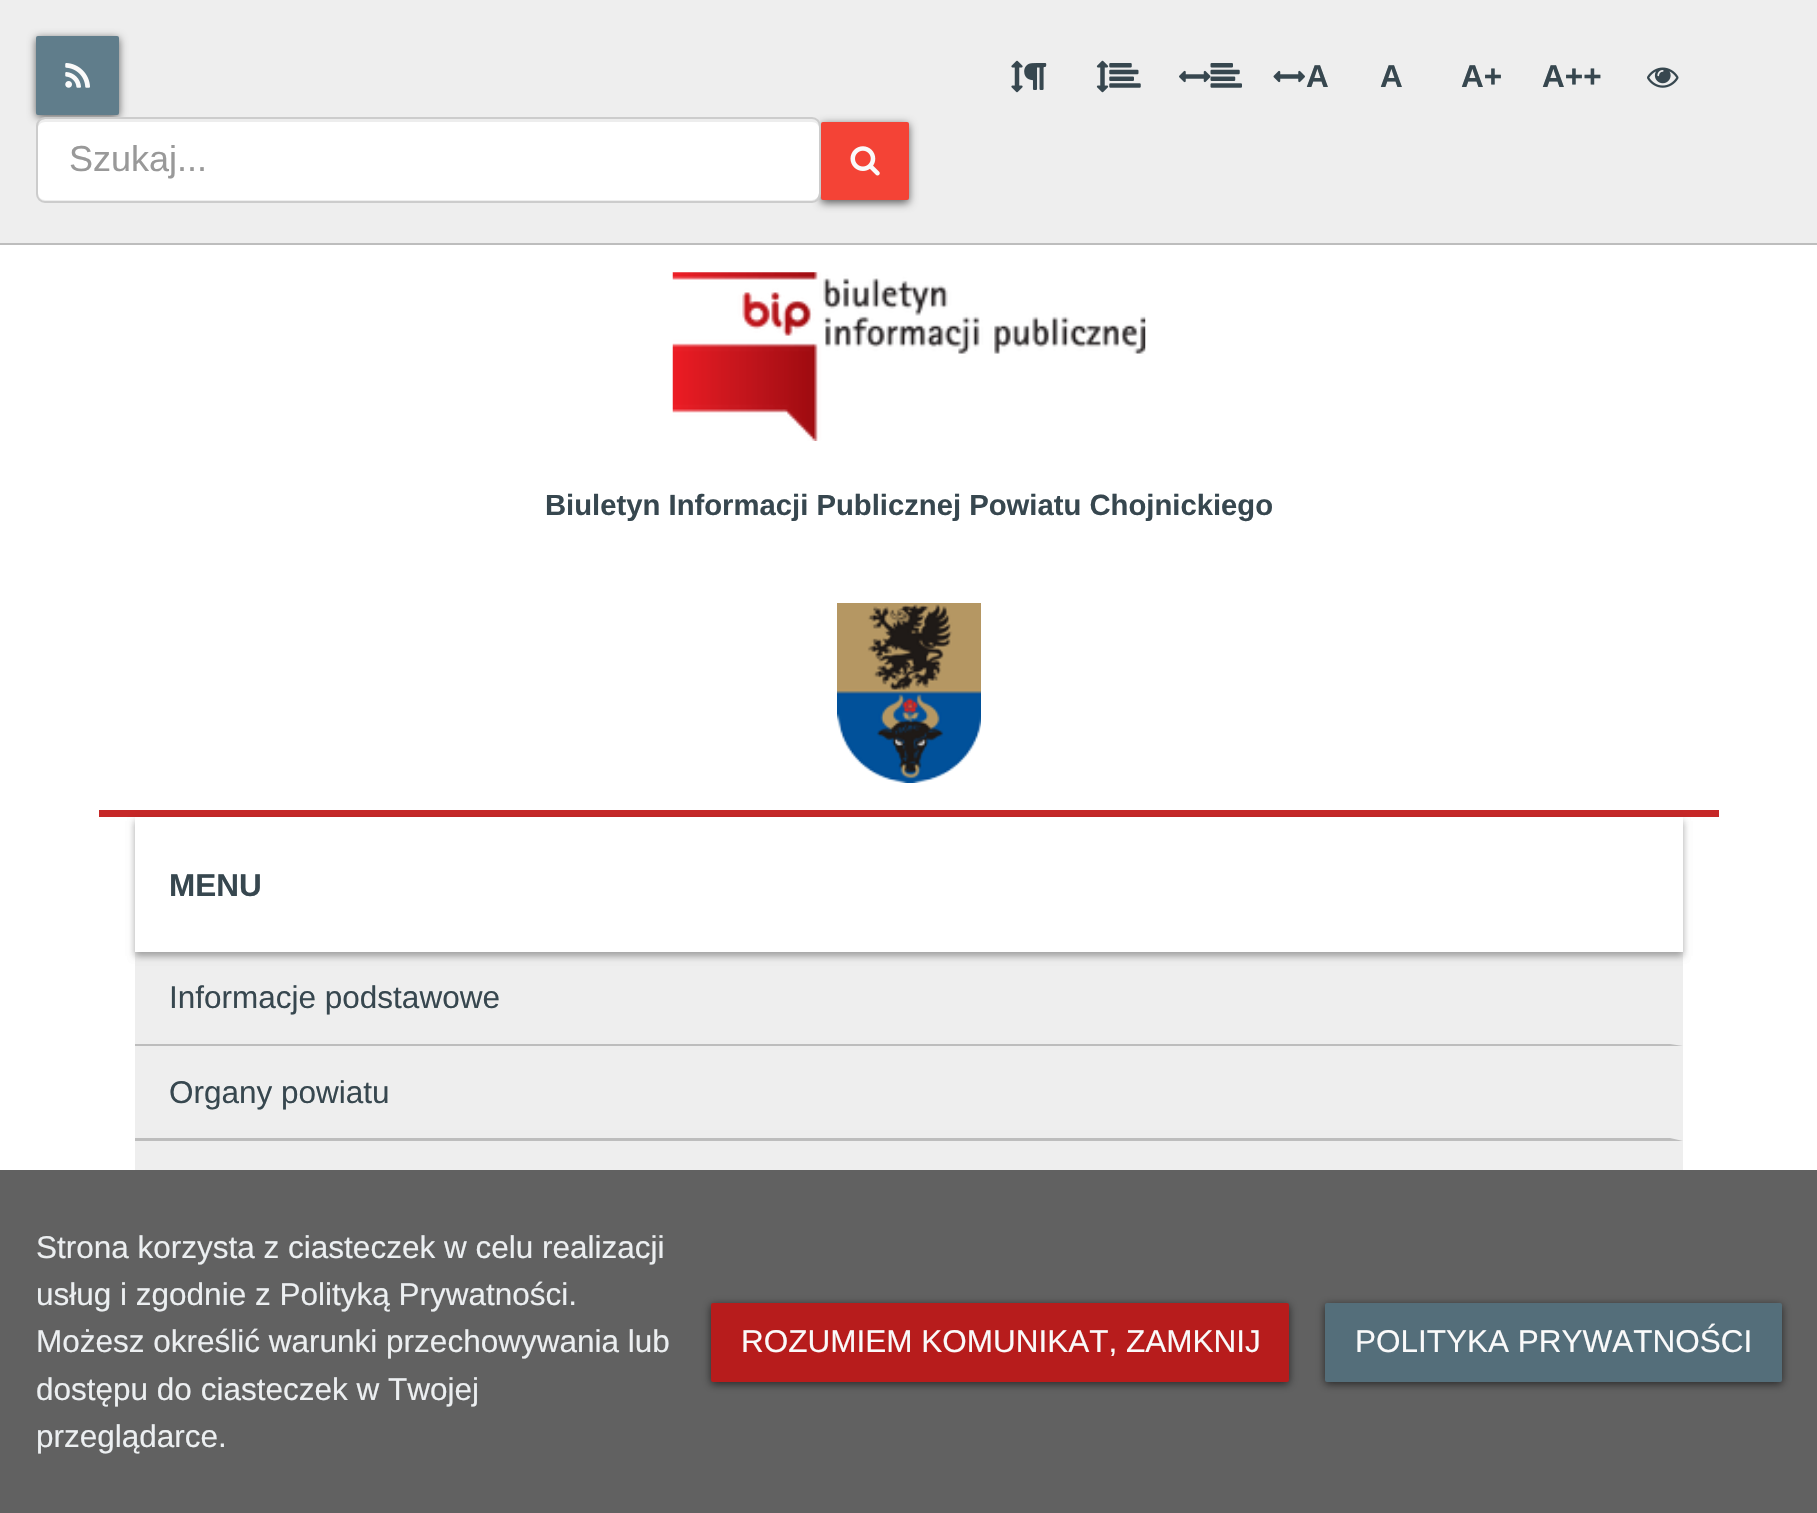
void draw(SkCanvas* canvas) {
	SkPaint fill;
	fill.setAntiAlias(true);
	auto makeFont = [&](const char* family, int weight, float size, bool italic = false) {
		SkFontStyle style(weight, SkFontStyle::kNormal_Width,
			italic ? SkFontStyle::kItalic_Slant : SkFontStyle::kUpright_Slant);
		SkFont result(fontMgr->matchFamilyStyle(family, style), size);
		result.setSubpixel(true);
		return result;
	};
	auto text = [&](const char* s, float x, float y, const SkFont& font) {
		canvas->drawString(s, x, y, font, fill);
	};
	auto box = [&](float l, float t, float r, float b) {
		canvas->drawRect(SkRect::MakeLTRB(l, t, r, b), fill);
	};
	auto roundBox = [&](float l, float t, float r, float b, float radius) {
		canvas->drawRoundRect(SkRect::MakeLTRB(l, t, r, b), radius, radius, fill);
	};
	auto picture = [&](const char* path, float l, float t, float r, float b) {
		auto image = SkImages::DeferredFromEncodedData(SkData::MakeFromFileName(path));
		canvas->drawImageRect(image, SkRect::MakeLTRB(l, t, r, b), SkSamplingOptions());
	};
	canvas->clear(0xFFFFFFFF);
	fill.setColor(0xFFEEEEEE);
	box(0, 0, 1817, 243);
	fill.setColor(0xFFBDBDBD);
	box(0, 243, 1817, 245);
	fill.setColor(0x99000000);
	fill.setMaskFilter(SkMaskFilter::MakeBlur(kNormal_SkBlurStyle, 4.5f));
	canvas->drawRoundRect(SkRect::MakeLTRB(36, 38, 119, 117), 2, 2, fill);
	fill.setMaskFilter(nullptr);
	fill.setColor(0xFF607D8B);
	roundBox(36, 36, 119, 115, 2);
	picture("image0.png", 65, 63, 90, 88);
	picture("image1.png", 1011, 60, 1023, 93);
	picture("image2.png", 1024, 63, 1047, 90);
	picture("image3.png", 1096, 60, 1109, 93);
	picture("image4.png", 1109, 63, 1141, 88);
	picture("image5.png", 1179, 70, 1211, 83);
	picture("image6.png", 1210, 63, 1242, 88);
	picture("image7.png", 1273, 70, 1305, 83);
	picture("image8.png", 1647, 67, 1679, 88);
	fill.setColor(0x99000000);
	fill.setMaskFilter(SkMaskFilter::MakeBlur(kNormal_SkBlurStyle, 4.5f));
	canvas->drawRoundRect(SkRect::MakeLTRB(821, 124, 909, 203), 2, 2, fill);
	fill.setMaskFilter(nullptr);
	fill.setColor(0xFFFFFFFF);
	roundBox(38, 119, 819, 200, 7);
	fill.setColor(0x12000000);
	canvas->drawPath(SkPathBuilder().moveTo(45, 122).lineTo(812, 122).cubicTo(816, 122, 819, 125, 819, 128).lineTo(819, 126).cubicTo(819, 122, 816, 119, 812, 119).lineTo(45, 119).cubicTo(41, 119, 38, 122, 38, 126).lineTo(38, 128).cubicTo(38, 125, 41, 122, 45, 122).close().detach(), fill);
	fill.setStyle(SkPaint::kStroke_Style);
	fill.setStrokeWidth(2);
	fill.setColor(0xFFCCCCCC);
	canvas->drawRoundRect(SkRect::MakeLTRB(37, 118, 820, 202), 8, 8, fill);
	fill.setStyle(SkPaint::kFill_Style);
	fill.setColor(0xFFF44336);
	roundBox(821, 122, 909, 200, 2);
	picture("image9.png", 850, 146, 880, 176);
	fill.setColor(0xFFC62828);
	box(99, 810, 1719, 817);
	picture("image10.png", 672, 272, 1146, 441);
	picture("image11.png", 837, 603, 981, 783);
	fill.setColor(0xFFEEEEEE);
	box(135, 952, 1683, 1170);
	fill.setColor(0x3D000000);
	fill.setMaskFilter(SkMaskFilter::MakeBlur(kNormal_SkBlurStyle, 3.5f));
	canvas->drawRect(SkRect::MakeLTRB(135, 821, 1683, 956), fill);
	fill.setMaskFilter(nullptr);
	fill.setColor(0x1F000000);
	fill.setMaskFilter(SkMaskFilter::MakeBlur(kNormal_SkBlurStyle, 3.5f));
	canvas->drawRect(SkRect::MakeLTRB(135, 821, 1683, 956), fill);
	fill.setMaskFilter(nullptr);
	fill.setColor(0xFFFFFFFF);
	box(135, 817, 1683, 952);
	fill.setColor(0xFFBDBDBD);
	canvas->drawPath(SkPathBuilder().moveTo(1683, 1046).lineTo(135, 1046).lineTo(135, 1044).lineTo(1670, 1044).close().detach(), fill);
	canvas->drawPath(SkPathBuilder().moveTo(1683, 1141).lineTo(135, 1141).lineTo(135, 1138).lineTo(1670, 1138).close().detach(), fill);
	fill.setColor(0xFF616161);
	box(0, 1170, 1817, 1513);
	fill.setColor(0x99000000);
	fill.setMaskFilter(SkMaskFilter::MakeBlur(kNormal_SkBlurStyle, 4.5f));
	canvas->drawRoundRect(SkRect::MakeLTRB(711, 1305, 1289, 1384), 2, 2, fill);
	fill.setMaskFilter(nullptr);
	fill.setColor(0xFFB71C1C);
	roundBox(711, 1303, 1289, 1382, 2);
	fill.setColor(0x99000000);
	fill.setMaskFilter(SkMaskFilter::MakeBlur(kNormal_SkBlurStyle, 4.5f));
	canvas->drawRoundRect(SkRect::MakeLTRB(1325, 1305, 1782, 1384), 2, 2, fill);
	fill.setMaskFilter(nullptr);
	fill.setColor(0xFF546E7A);
	roundBox(1325, 1303, 1782, 1382, 2);
	auto font1 = makeFont("Liberation Sans", 700, 31.5f);
	fill.setColor(0xFF37474F);
	text("A", 1306, 87, font1);
	text("A", 1380, 87, font1);
	text("A+", 1461, 87, font1);
	text("A++", 1542, 87, font1);
	auto font2 = makeFont("Liberation Sans", 400, 36);
	fill.setColor(0xFF999999);
	text("Szukaj...", 69, 171, font2);
	auto font3 = makeFont("Liberation Sans", 700, 29.25f);
	fill.setColor(0xFF37474F);
	text("Biuletyn Informacji Publicznej Powiatu Chojnickiego", 545, 515, font3);
	text("MENU", 169, 896, font1);
	auto font4 = makeFont("Liberation Sans", 400, 31.5f);
	text("Informacje podstawowe", 169, 1008, font4);
	text("Organy powiatu", 169, 1103, font4);
	fill.setColor(0xFFECEFF1);
	text("Strona korzysta z ciasteczek w celu realizacji", 36, 1258, font4);
	text("usług i zgodnie z Polityką Prywatności.", 36, 1305, font4);
	text("Możesz określić warunki przechowywania lub", 36, 1352, font4);
	text("dostępu do ciasteczek w Twojej", 36, 1400, font4);
	text("przeglądarce.", 36, 1447, font4);
	fill.setColor(0xFFFAFAFA);
	text("ROZUMIEM KOMUNIKAT, ZAMKNIJ", 741, 1352, font4);
	text("POLITYKA PRYWATNOŚCI", 1355, 1352, font4);
}
